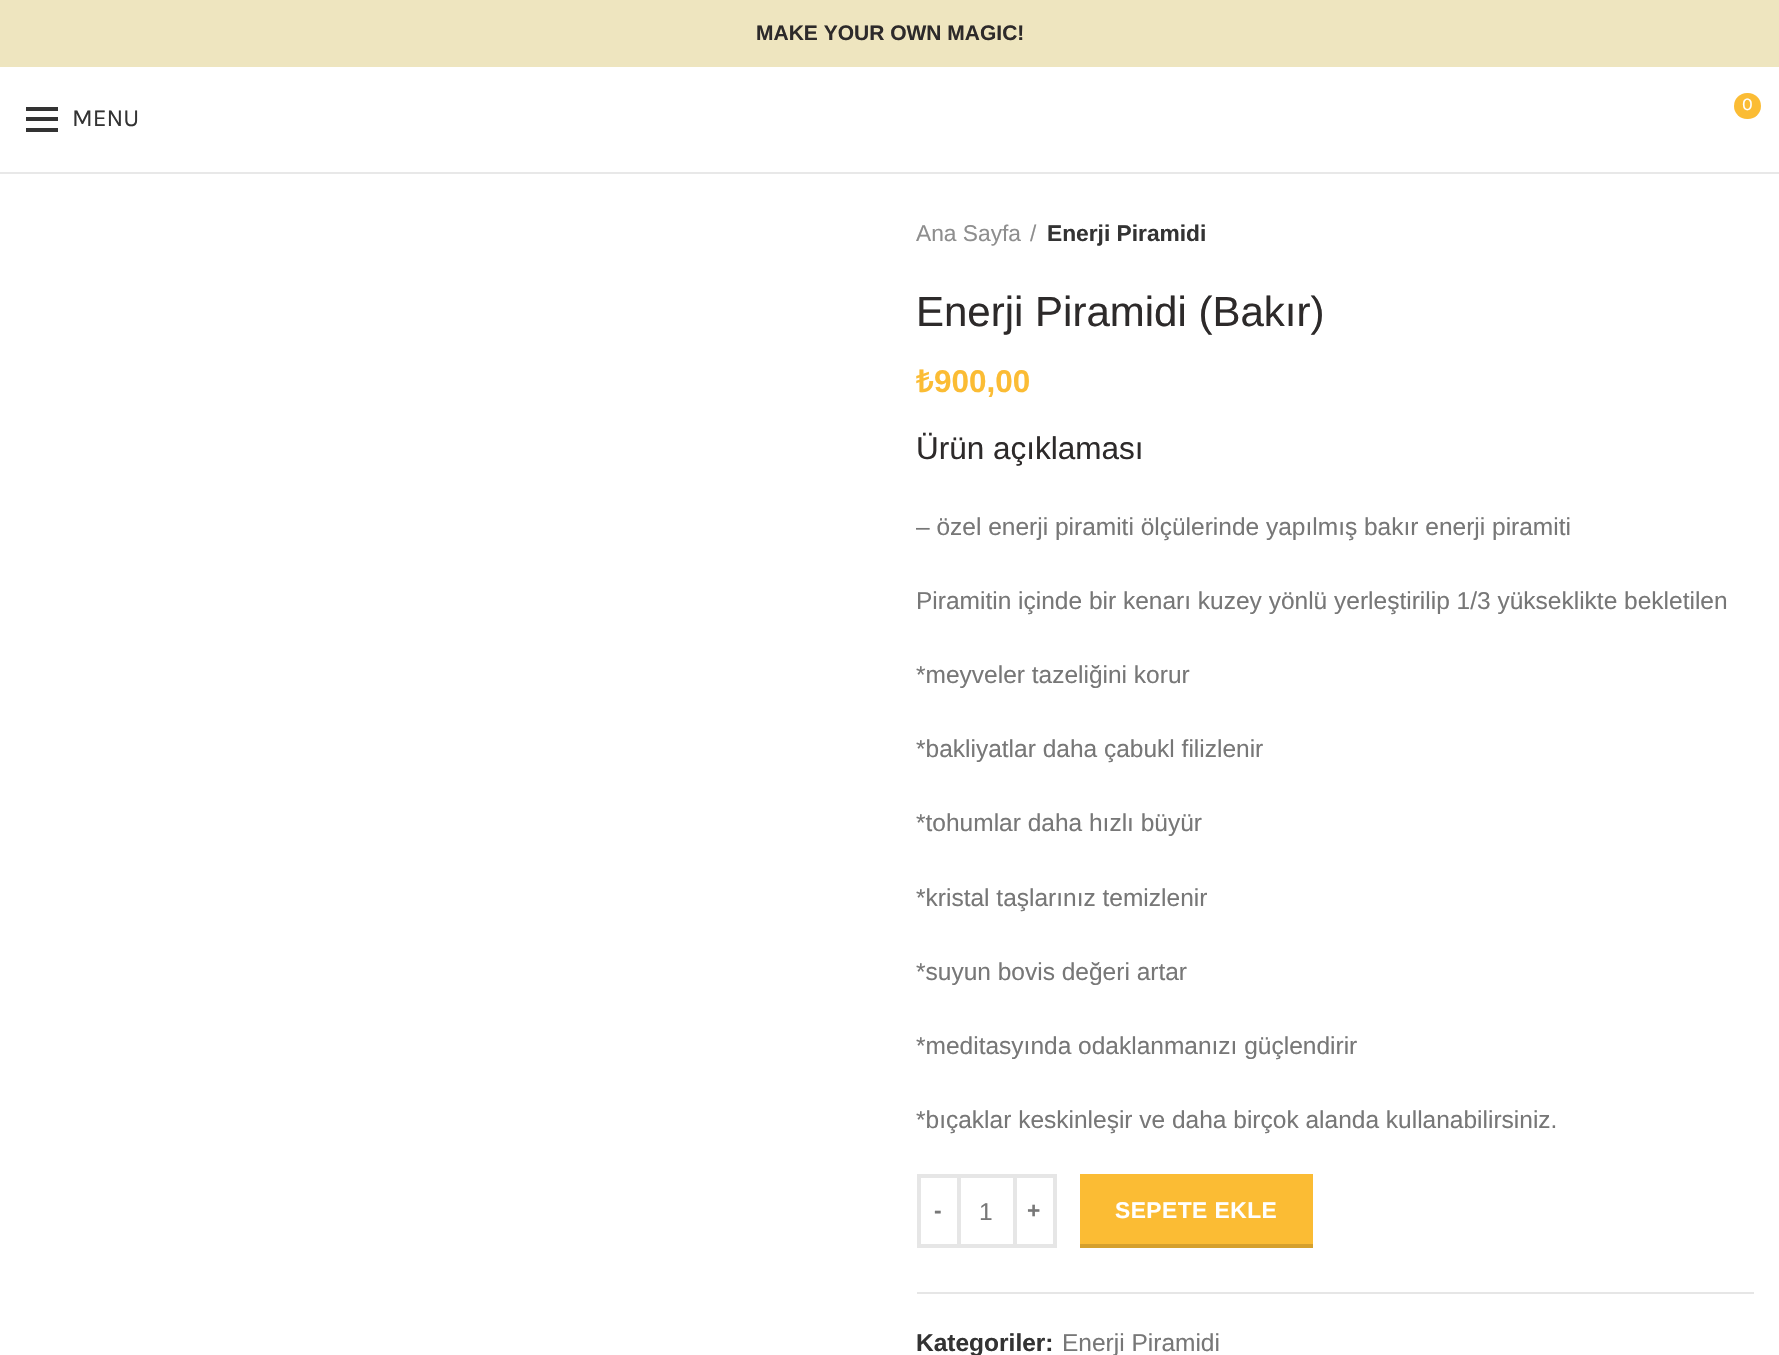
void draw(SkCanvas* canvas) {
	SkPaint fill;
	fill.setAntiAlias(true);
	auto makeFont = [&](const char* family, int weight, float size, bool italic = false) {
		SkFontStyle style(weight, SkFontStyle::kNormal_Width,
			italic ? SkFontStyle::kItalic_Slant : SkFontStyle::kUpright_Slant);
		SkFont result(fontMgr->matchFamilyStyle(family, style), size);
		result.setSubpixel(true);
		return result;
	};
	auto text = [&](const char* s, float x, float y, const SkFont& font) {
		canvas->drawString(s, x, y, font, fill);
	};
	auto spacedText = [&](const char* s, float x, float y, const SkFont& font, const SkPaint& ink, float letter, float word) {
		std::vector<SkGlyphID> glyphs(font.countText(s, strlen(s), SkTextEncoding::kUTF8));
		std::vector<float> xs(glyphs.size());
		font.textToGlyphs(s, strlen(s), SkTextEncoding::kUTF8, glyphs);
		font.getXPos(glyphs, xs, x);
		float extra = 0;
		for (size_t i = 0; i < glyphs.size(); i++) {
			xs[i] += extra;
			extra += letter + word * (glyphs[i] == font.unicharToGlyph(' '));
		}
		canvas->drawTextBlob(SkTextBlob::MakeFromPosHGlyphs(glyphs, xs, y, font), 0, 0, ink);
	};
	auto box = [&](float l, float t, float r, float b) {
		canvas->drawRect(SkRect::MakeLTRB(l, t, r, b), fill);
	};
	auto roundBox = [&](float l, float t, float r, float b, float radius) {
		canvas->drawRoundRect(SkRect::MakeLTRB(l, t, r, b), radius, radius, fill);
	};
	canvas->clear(0xFFFFFFFF);
	fill.setColor(0xFFEEE5BF);
	box(0, 0, 1779, 67);
	fill.setColor(0xFFE8E8E8);
	box(0, 172, 1779, 174);
	fill.setColor(0xFFFBBC34);
	roundBox(1734, 93, 1761, 119, 13);
	fill.setColor(0xFF333333);
	box(26, 117, 58, 121);
	box(26, 107, 58, 111);
	box(26, 128, 58, 132);
	fill.setStyle(SkPaint::kStroke_Style);
	fill.setStrokeWidth(4);
	fill.setColor(0xFFE6E6E6);
	canvas->drawRect(SkRect::MakeLTRB(919, 1176, 959, 1246), fill);
	fill.setStyle(SkPaint::kFill_Style);
	box(961, 1174, 1013, 1178);
	box(961, 1244, 1013, 1248);
	fill.setStyle(SkPaint::kStroke_Style);
	canvas->drawRect(SkRect::MakeLTRB(1015, 1176, 1055, 1246), fill);
	fill.setStyle(SkPaint::kFill_Style);
	fill.setColor(0xFFFBBC34);
	box(1080, 1174, 1313, 1244);
	fill.setColor(0xFFD5A02C);
	box(1080, 1244, 1313, 1248);
	fill.setColor(0xFFE6E6E6);
	box(917, 1292, 1754, 1294);
	auto font1 = makeFont("Liberation Sans", 700, 21);
	fill.setColor(0xFF2D2A2A);
	text("MAKE YOUR OWN MAGIC!", 756, 40, font1);
	auto font2 = makeFont("Karla", 400, 18);
	fill.setColor(0xFFFFFFFF);
	text("0", 1742, 110, font2);
	auto font3 = makeFont("Karla", 400, 24.5f);
	fill.setColor(0xFF333333);
	text("MENU", 72, 126, font3);
	auto font4 = makeFont("Liberation Sans", 400, 22.75f);
	fill.setColor(0xFF8E8E8E);
	text("Ana Sayfa", 916, 241, font4);
	text("/", 1030, 241, font4);
	auto font5 = makeFont("Liberation Sans", 700, 22.75f);
	fill.setColor(0xFF333333);
	text("Enerji Piramidi", 1047, 241, font5);
	auto font6 = makeFont("Liberation Sans", 400, 42);
	fill.setColor(0xFF2D2A2A);
	text("Enerji Piramidi (Bakır)", 916, 326, font6);
	auto font7 = makeFont("Noto Sans", 600, 31.5f);
	fill.setColor(0xFFFBBC34);
	text("₺", 916, 392, font7);
	auto font8 = makeFont("Liberation Sans", 700, 31.5f);
	text("900,00", 934, 392, font8);
	auto font9 = makeFont("Liberation Sans", 400, 31.5f);
	fill.setColor(0xFF2D2A2A);
	text("Ürün açıklaması", 916, 459, font9);
	auto font10 = makeFont("Liberation Sans", 400, 24.5f);
	fill.setColor(0xFF777777);
	text("– özel enerji piramiti ölçülerinde yapılmış bakır enerji piramiti", 916, 535, font10);
	text("Piramitin içinde bir kenarı kuzey yönlü yerleştirilip 1/3 yükseklikte bekletilen", 916, 609, font10);
	text("*meyveler tazeliğini korur", 916, 683, font10);
	text("*bakliyatlar daha çabukl filizlenir", 916, 757, font10);
	text("*tohumlar daha hızlı büyür", 916, 831, font10);
	text("*kristal taşlarınız temizlenir", 916, 906, font10);
	text("*suyun bovis değeri artar", 916, 980, font10);
	text("*meditasyında odaklanmanızı güçlendirir", 916, 1054, font10);
	text("*bıçaklar keskinleşir ve daha birçok alanda kullanabilirsiniz.", 916, 1128, font10);
	spacedText("-", 934, 1218, font5, fill, 0.5f, 0);
	text("1", 979, 1220, font10);
	spacedText("+", 1027, 1218, font5, fill, 0.5f, 0);
	fill.setColor(0xFFFFFFFF);
	spacedText("SEPETE EKLE", 1115, 1218, font5, fill, 0.5f, 0);
	auto font11 = makeFont("Liberation Sans", 700, 24.5f);
	fill.setColor(0xFF333333);
	text("Kategoriler:", 916, 1351, font11);
	fill.setColor(0xFF777777);
	text("Enerji Piramidi", 1062, 1351, font10);
}
